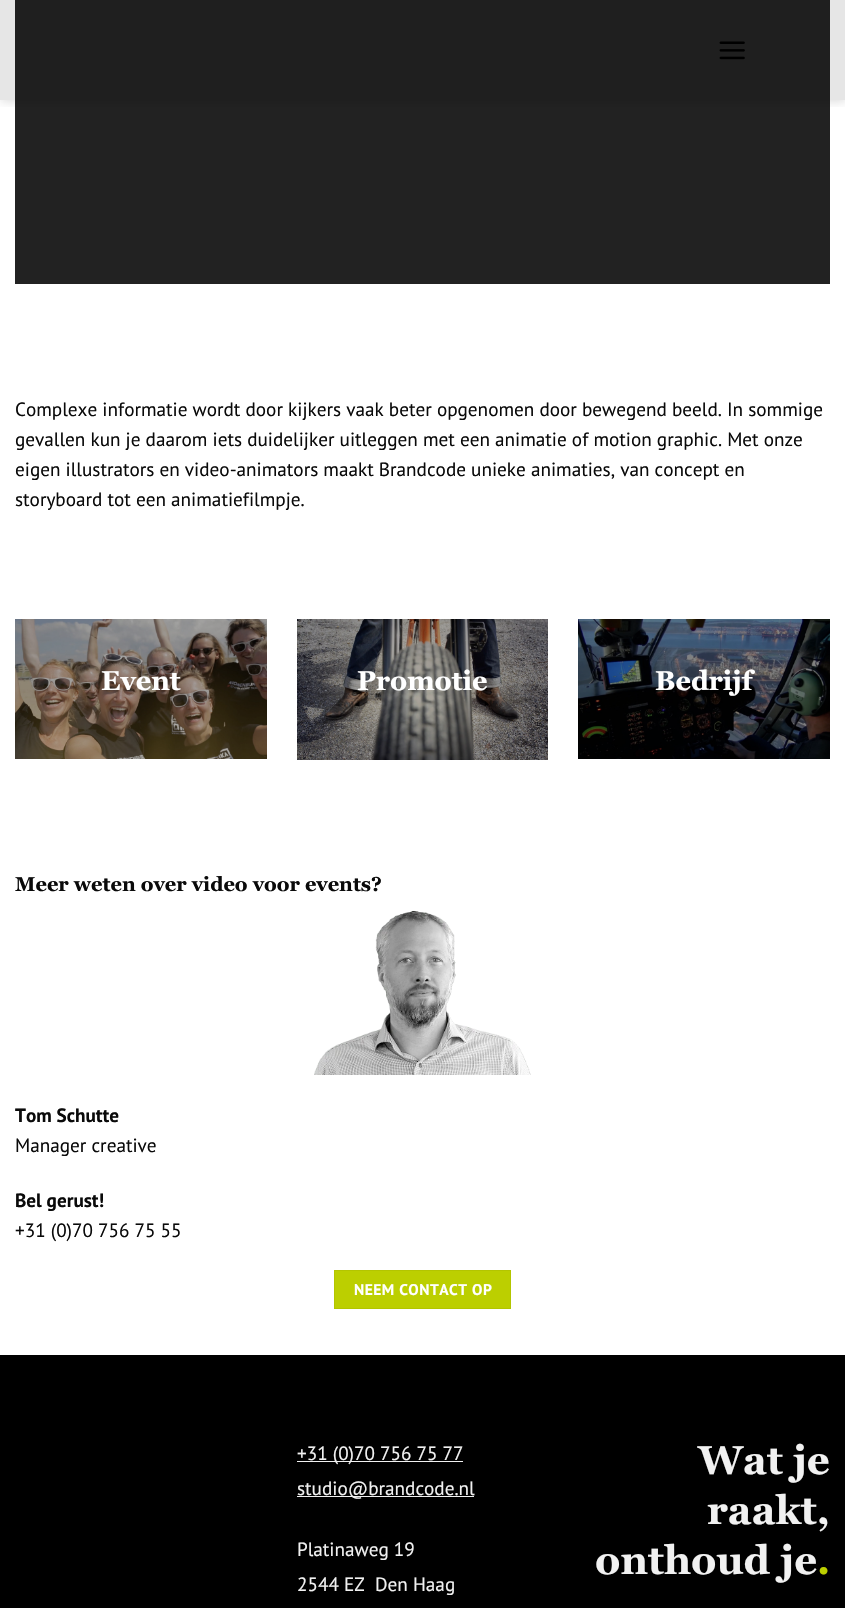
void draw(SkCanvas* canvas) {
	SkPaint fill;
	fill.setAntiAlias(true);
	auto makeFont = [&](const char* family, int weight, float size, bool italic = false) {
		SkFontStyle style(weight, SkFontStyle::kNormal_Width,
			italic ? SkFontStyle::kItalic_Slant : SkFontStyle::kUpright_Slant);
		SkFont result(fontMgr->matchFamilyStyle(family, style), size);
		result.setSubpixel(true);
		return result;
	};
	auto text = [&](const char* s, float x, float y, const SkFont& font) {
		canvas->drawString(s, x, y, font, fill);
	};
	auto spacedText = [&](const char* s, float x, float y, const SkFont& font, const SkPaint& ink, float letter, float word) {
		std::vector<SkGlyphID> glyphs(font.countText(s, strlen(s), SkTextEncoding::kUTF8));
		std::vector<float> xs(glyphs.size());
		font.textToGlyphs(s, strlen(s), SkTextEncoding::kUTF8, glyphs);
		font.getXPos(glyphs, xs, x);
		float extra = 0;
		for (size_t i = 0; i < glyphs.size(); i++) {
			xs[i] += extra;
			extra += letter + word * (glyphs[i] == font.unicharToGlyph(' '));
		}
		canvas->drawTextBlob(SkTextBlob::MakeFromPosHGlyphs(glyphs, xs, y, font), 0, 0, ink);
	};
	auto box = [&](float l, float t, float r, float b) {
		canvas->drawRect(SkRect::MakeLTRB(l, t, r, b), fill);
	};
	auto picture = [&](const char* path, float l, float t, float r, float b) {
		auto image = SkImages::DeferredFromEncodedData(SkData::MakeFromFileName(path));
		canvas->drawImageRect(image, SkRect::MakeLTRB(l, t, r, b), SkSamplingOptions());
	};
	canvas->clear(0xFFFFFFFF);
	fill.setColor(0xFFE6E6E6);
	box(0, 0, 845, 100);
	fill.setColor(0xFF222222);
	box(15, 100, 830, 284);
	fill.setColor(0xFF1F1F1F);
	box(15, 0, 830, 100);
	canvas->save();
	canvas->clipRect(SkRect::MakeLTRB(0, 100, 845, 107));
	fill.setColor(0x26000000);
	fill.setMaskFilter(SkMaskFilter::MakeBlur(kNormal_SkBlurStyle, 5));
	canvas->drawRect(SkRect::MakeLTRB(1, 1, 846, 101), fill);
	fill.setMaskFilter(nullptr);
	canvas->restore();
	picture("image0.png", 719, 41, 745, 60);
	picture("image1.png", 15, 619, 267, 759);
	picture("image2.png", 297, 619, 548, 760);
	picture("image3.png", 578, 619, 830, 759);
	picture("image4.png", 314, 910, 531, 1075);
	fill.setColor(0xFFBCCF00);
	canvas->drawRect(SkRect::MakeLTRB(334.5f, 1270.5f, 510.5f, 1308.5f), fill);
	fill.setStyle(SkPaint::kStroke_Style);
	fill.setStrokeWidth(1);
	fill.setColor(0xFFB3C500);
	canvas->drawRect(SkRect::MakeLTRB(334.5f, 1270.5f, 510.5f, 1308.5f), fill);
	fill.setStyle(SkPaint::kFill_Style);
	fill.setColor(0xFF000000);
	box(0, 1355, 845, 1608);
	fill.setColor(0xFFF1F1F1);
	box(297, 1461, 463, 1462);
	box(297, 1496, 474, 1497);
	auto font1 = makeFont("PT Sans", 400, 19.2f);
	fill.setColor(0xFF0A0A0A);
	text("Complexe informatie wordt door kijkers vaak beter opgenomen door bewegend beeld. In sommige", 15, 416, font1);
	text("gevallen kun je daarom iets duidelijker uitleggen met een animatie of motion graphic. Met onze", 15, 446, font1);
	text("eigen illustrators en video-animators maakt Brandcode unieke animaties, van concept en", 15, 476, font1);
	text("storyboard tot een animatiefilmpje.", 15, 506, font1);
	auto font2 = makeFont("Georgia", 700, 27);
	fill.setColor(0xFFFFFFFF);
	text("Event", 101, 690, font2);
	text("Promotie", 357, 690, font2);
	text("Bedrijf", 655, 690, font2);
	auto font3 = makeFont("Georgia", 700, 20);
	fill.setColor(0xFF0A0A0A);
	text("Meer weten over video voor events?", 15, 891, font3);
	auto font4 = makeFont("PT Sans", 700, 19.2f);
	text("Tom Schutte", 15, 1122, font4);
	text("Manager creative", 15, 1152, font1);
	text("Bel gerust!", 15, 1207, font4);
	text("+31 (0)70 756 75 55", 15, 1237, font1);
	auto font5 = makeFont("PT Sans", 700, 15.5f);
	fill.setColor(0xFFFFFFFF);
	spacedText("NEEM CONTACT OP", 354, 1295, font5, fill, 0.5f, 0);
	fill.setColor(0xFFF1F1F1);
	text("+31 (0)70 756 75 77", 297, 1460, font1);
	text("studio@brandcode.nl", 297, 1495, font1);
	text("Platinaweg 19", 297, 1556, font1);
	text("2544 EZ  Den Haag", 297, 1591, font1);
	auto font6 = makeFont("Georgia", 700, 40);
	text("Wat je", 698, 1474, font6);
	text("raakt,", 707, 1524, font6);
	text("onthoud je", 595, 1574, font6);
	fill.setColor(0xFFBCCF00);
	text(".", 817, 1574, font6);
}
